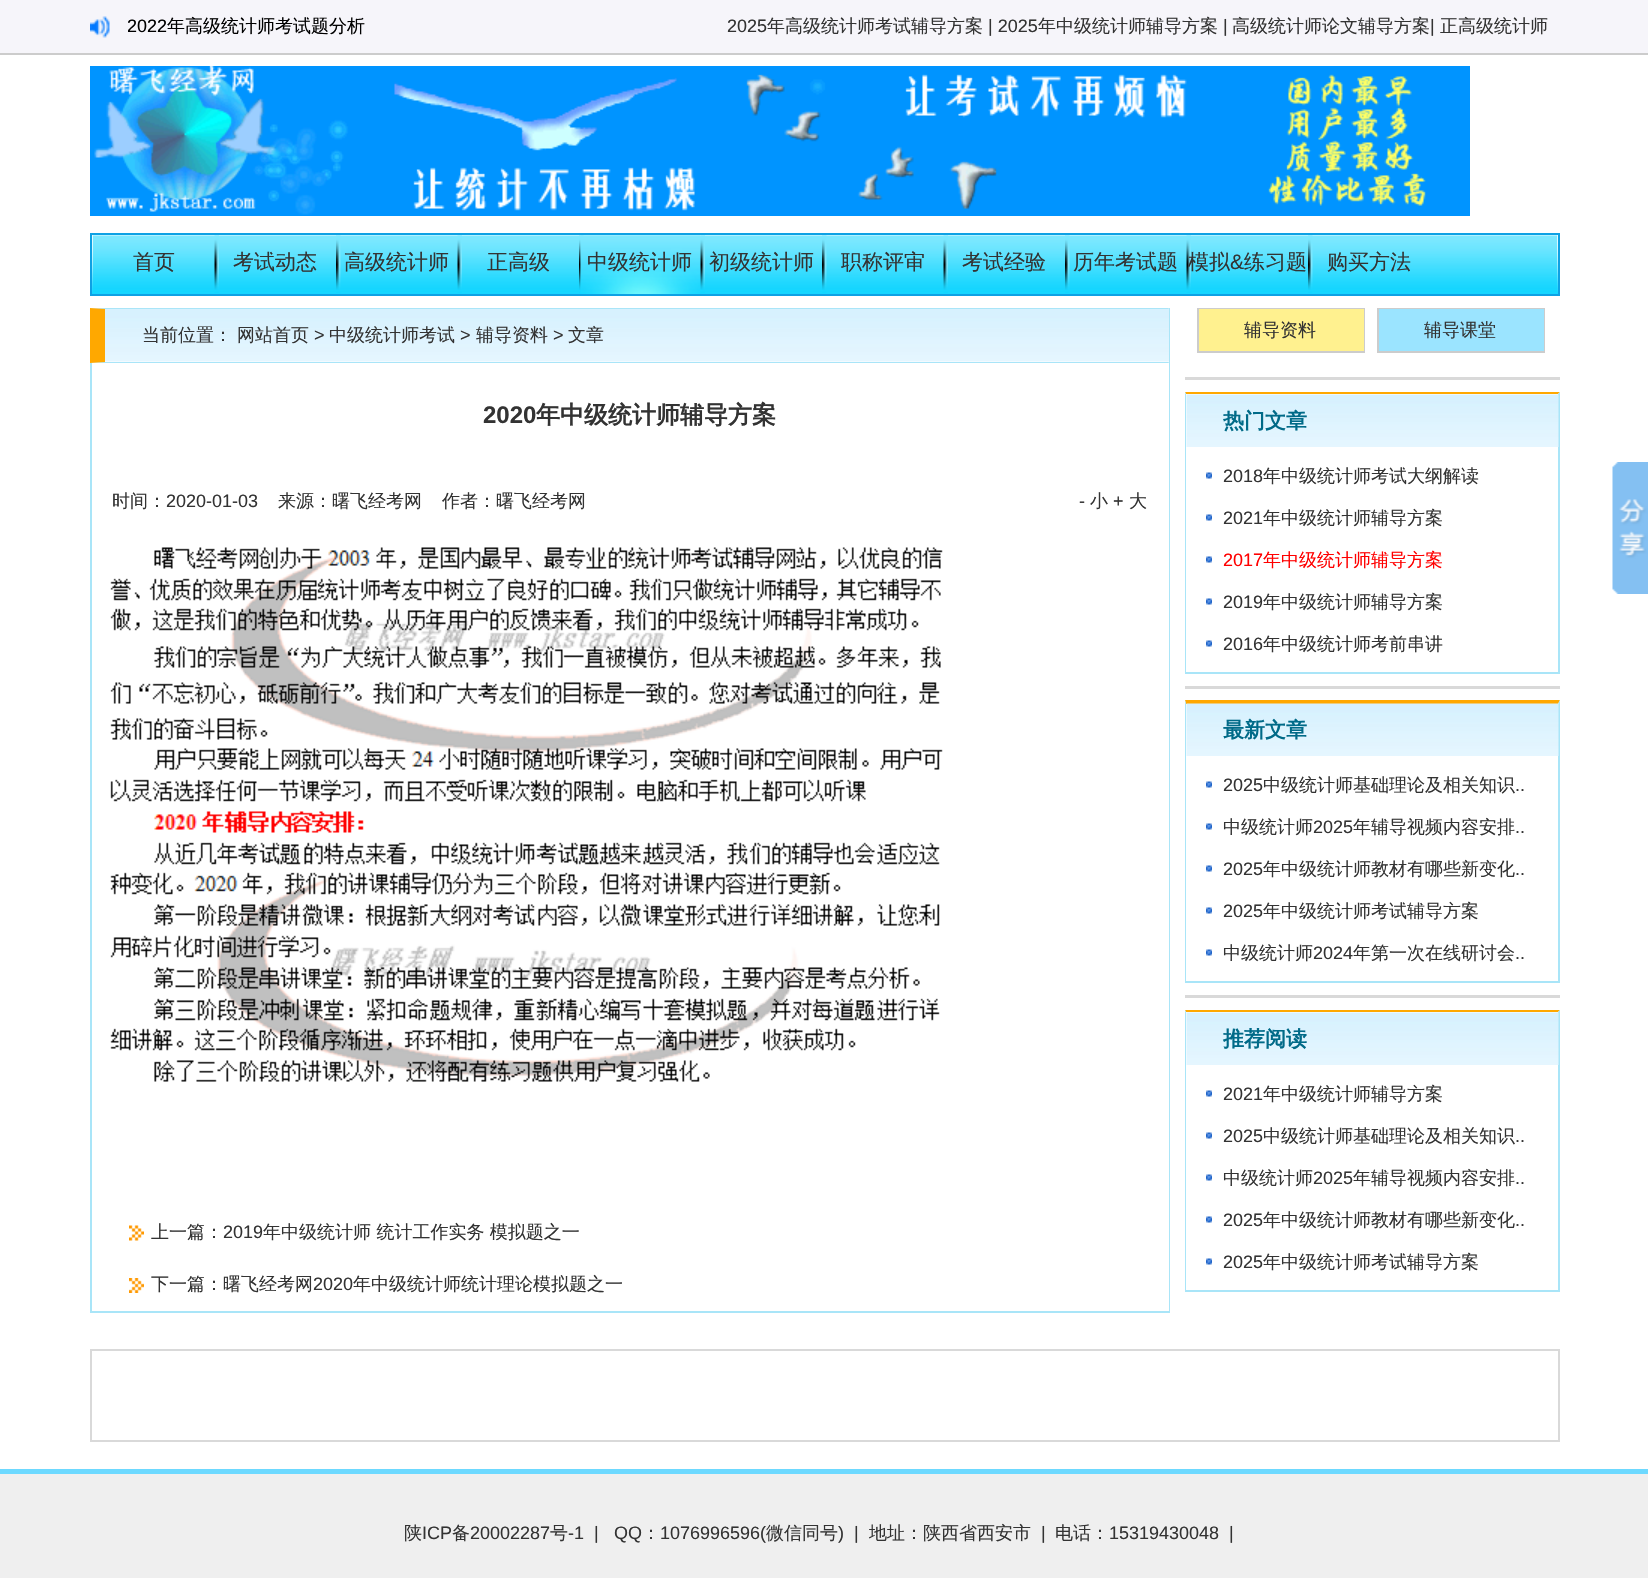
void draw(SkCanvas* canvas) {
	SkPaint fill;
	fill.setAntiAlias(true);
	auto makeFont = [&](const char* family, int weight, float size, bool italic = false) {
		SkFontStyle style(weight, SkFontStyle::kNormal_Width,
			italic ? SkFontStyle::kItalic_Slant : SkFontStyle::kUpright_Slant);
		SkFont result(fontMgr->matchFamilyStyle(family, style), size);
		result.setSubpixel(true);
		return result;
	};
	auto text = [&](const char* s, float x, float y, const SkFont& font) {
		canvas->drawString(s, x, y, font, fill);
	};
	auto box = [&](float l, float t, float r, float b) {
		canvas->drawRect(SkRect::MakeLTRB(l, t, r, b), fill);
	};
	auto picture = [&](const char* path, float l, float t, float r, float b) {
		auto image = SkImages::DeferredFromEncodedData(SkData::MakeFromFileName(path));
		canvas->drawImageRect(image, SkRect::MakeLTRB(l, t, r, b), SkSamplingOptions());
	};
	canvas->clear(0xFFFFFFFF);
	fill.setColor(0xFFF6F5FA);
	box(0, 0, 1648, 53);
	fill.setColor(0xFFCCCCCC);
	box(0, 53, 1648, 55);
	picture("image0.png", 90, 16, 110, 38);
	picture("image1.png", 90, 66, 1470, 216);
	picture("image2.png", 92, 235, 1558, 294);
	fill.setStyle(SkPaint::kStroke_Style);
	fill.setStrokeWidth(2);
	fill.setColor(0xFF0EA1E4);
	canvas->drawRect(SkRect::MakeLTRB(91, 234, 1559, 295), fill);
	picture("image3.png", 93, 235, 1557, 292);
	picture("image4.png", 214, 235, 219, 293);
	picture("image5.png", 336, 235, 341, 293);
	picture("image4.png", 457, 235, 462, 293);
	picture("image5.png", 579, 235, 584, 293);
	picture("image6.png", 580, 235, 701, 294);
	picture("image7.png", 700, 235, 705, 293);
	picture("image5.png", 822, 235, 827, 293);
	picture("image4.png", 943, 235, 948, 293);
	picture("image5.png", 1065, 235, 1070, 293);
	picture("image8.png", 1186, 235, 1191, 293);
	picture("image5.png", 1308, 235, 1313, 293);
	picture("image9.png", 105, 309, 1169, 362);
	fill.setStyle(SkPaint::kFill_Style);
	fill.setColor(0xFFA9E5F8);
	canvas->drawPath(SkPathBuilder().moveTo(90, 308).lineTo(1170, 308).lineTo(1168, 309).lineTo(105, 309).close().detach(), fill);
	box(1169, 308, 1170, 363);
	canvas->drawPath(SkPathBuilder().moveTo(1170, 363).lineTo(90, 363).lineTo(105, 362).lineTo(1168, 362).close().detach(), fill);
	fill.setColor(0xFFFFA800);
	canvas->drawPath(SkPathBuilder().moveTo(90, 363).lineTo(90, 308).lineTo(105, 309).lineTo(105, 362).close().detach(), fill);
	fill.setColor(0xFFA9E5F8);
	box(1169, 363, 1170, 1313);
	box(90, 1311, 1170, 1313);
	box(90, 363, 92, 1313);
	picture("image10.png", 110, 547, 943, 1082);
	picture("image11.png", 129, 1225, 144, 1241);
	picture("image12.png", 129, 1278, 144, 1293);
	fill.setStyle(SkPaint::kStroke_Style);
	fill.setColor(0xFFCCCCCC);
	canvas->drawRect(SkRect::MakeLTRB(1198, 309, 1364, 352), fill);
	fill.setStyle(SkPaint::kFill_Style);
	fill.setColor(0xFFFFF18F);
	box(1199, 309, 1364, 351);
	fill.setStyle(SkPaint::kStroke_Style);
	fill.setColor(0xFFCCCCCC);
	canvas->drawRect(SkRect::MakeLTRB(1378, 309, 1544, 352), fill);
	fill.setStyle(SkPaint::kFill_Style);
	fill.setColor(0xFF9BE4FF);
	box(1379, 309, 1544, 351);
	fill.setColor(0xFFD9D9D9);
	box(1185, 377, 1560, 380);
	fill.setColor(0xFFFFA800);
	canvas->drawPath(SkPathBuilder().moveTo(1185, 392).lineTo(1560, 392).lineTo(1558, 394).lineTo(1186, 394).close().detach(), fill);
	fill.setColor(0xFFA9E5F8);
	canvas->drawPath(SkPathBuilder().moveTo(1560, 392).lineTo(1560, 674).lineTo(1558, 672).lineTo(1558, 394).close().detach(), fill);
	box(1185, 672, 1560, 674);
	canvas->drawPath(SkPathBuilder().moveTo(1185, 674).lineTo(1185, 392).lineTo(1186, 394).lineTo(1186, 672).close().detach(), fill);
	picture("image13.png", 1186, 394, 1559, 447);
	picture("image14.png", 1206, 472, 1212, 479);
	picture("image14.png", 1206, 514, 1212, 521);
	picture("image14.png", 1206, 556, 1212, 563);
	picture("image14.png", 1206, 598, 1212, 605);
	picture("image14.png", 1206, 640, 1212, 647);
	fill.setColor(0xFFD9D9D9);
	box(1185, 686, 1560, 689);
	fill.setColor(0xFFFFA800);
	canvas->drawPath(SkPathBuilder().moveTo(1185, 700).lineTo(1560, 700).lineTo(1558, 704).lineTo(1186, 704).close().detach(), fill);
	fill.setColor(0xFFA9E5F8);
	canvas->drawPath(SkPathBuilder().moveTo(1560, 700).lineTo(1560, 982).lineTo(1558, 981).lineTo(1558, 704).close().detach(), fill);
	box(1185, 981, 1560, 983);
	canvas->drawPath(SkPathBuilder().moveTo(1185, 982).lineTo(1185, 700).lineTo(1186, 704).lineTo(1186, 981).close().detach(), fill);
	picture("image15.png", 1186, 703, 1559, 756);
	picture("image14.png", 1206, 781, 1212, 788);
	picture("image14.png", 1206, 823, 1212, 830);
	picture("image14.png", 1206, 865, 1212, 872);
	picture("image14.png", 1206, 907, 1212, 914);
	picture("image14.png", 1206, 949, 1212, 956);
	fill.setColor(0xFFD9D9D9);
	box(1185, 995, 1560, 998);
	fill.setColor(0xFFFFA800);
	canvas->drawPath(SkPathBuilder().moveTo(1185, 1010).lineTo(1560, 1010).lineTo(1558, 1012).lineTo(1186, 1012).close().detach(), fill);
	fill.setColor(0xFFA9E5F8);
	canvas->drawPath(SkPathBuilder().moveTo(1560, 1010).lineTo(1560, 1292).lineTo(1558, 1290).lineTo(1558, 1012).close().detach(), fill);
	box(1185, 1290, 1560, 1292);
	canvas->drawPath(SkPathBuilder().moveTo(1185, 1292).lineTo(1185, 1010).lineTo(1186, 1012).lineTo(1186, 1290).close().detach(), fill);
	picture("image13.png", 1186, 1012, 1559, 1065);
	picture("image14.png", 1206, 1090, 1212, 1097);
	picture("image14.png", 1206, 1132, 1212, 1139);
	picture("image14.png", 1206, 1174, 1212, 1181);
	picture("image14.png", 1206, 1216, 1212, 1223);
	picture("image14.png", 1206, 1258, 1212, 1265);
	picture("image16.png", 1612, 462, 1648, 594);
	fill.setStyle(SkPaint::kStroke_Style);
	fill.setColor(0xFFD9D9D9);
	canvas->drawRect(SkRect::MakeLTRB(91, 1350, 1559, 1441), fill);
	fill.setStyle(SkPaint::kFill_Style);
	fill.setColor(0xFFEFEFEF);
	box(0, 1474, 1648, 1578);
	fill.setColor(0xFF6DD9FF);
	box(0, 1469, 1648, 1474);
	canvas->save();
	canvas->clipRect(SkRect::MakeLTRB(128, 0, 683, 53));
	auto font1 = makeFont("Liberation Sans", 400, 18);
	fill.setColor(0xFF000000);
	text("2022", 127, 32, font1);
	canvas->restore();
	auto font2 = makeFont("WenQuanYi Zen Hei", 500, 18);
	text("年高级统计师考试题分析", 167, 32, font2);
	fill.setColor(0xFF333333);
	text("2025", 727, 32, font1);
	text("年高级统计师考试辅导方案", 767, 32, font2);
	text("| 2025", 988, 32, font1);
	text("年中级统计师辅导方案", 1038, 32, font2);
	text("|", 1223, 32, font1);
	text("高级统计师论文辅导方案", 1232, 32, font2);
	text("|", 1430, 32, font1);
	text("正高级统计师", 1440, 32, font2);
	auto font3 = makeFont("WenQuanYi Zen Hei", 500, 21);
	text("首页", 133, 269, font3);
	text("考试动态", 233, 269, font3);
	text("高级统计师", 344, 269, font3);
	text("正高级", 487, 269, font3);
	text("中级统计师", 587, 269, font3);
	text("初级统计师", 709, 269, font3);
	text("职称评审", 841, 269, font3);
	text("考试经验", 962, 269, font3);
	text("历年考试题", 1073, 269, font3);
	text("模拟", 1188, 269, font3);
	auto font4 = makeFont("Liberation Sans", 400, 21);
	text("&", 1230, 269, font4);
	text("练习题", 1244, 269, font3);
	text("购买方法", 1327, 269, font3);
	text("当前位置：", 142, 341, font2);
	text("网站首页", 237, 341, font2);
	text(">", 314, 341, font1);
	text("中级统计师考试", 329, 341, font2);
	text(">", 460, 341, font1);
	text("辅导资料", 476, 341, font2);
	text(">", 553, 341, font1);
	text("文章", 568, 341, font2);
	auto font5 = makeFont("Liberation Sans", 700, 24);
	text("2020", 483, 423, font5);
	auto font6 = makeFont("WenQuanYi Zen Hei", 700, 24);
	text("年中级统计师辅导方案", 536, 423, font6);
	text("时间：", 112, 507, font2);
	text("2020-01-03", 166, 507, font1);
	text("来源：曙飞经考网", 278, 507, font2);
	text("作者：曙飞经考网", 442, 507, font2);
	text("-", 1079, 507, font1);
	text("小", 1090, 507, font2);
	text("+", 1113, 507, font1);
	text("大", 1129, 507, font2);
	text("上一篇：", 151, 1238, font2);
	text("2019", 223, 1238, font1);
	text("年中级统计师 统计工作实务 模拟题之一", 263, 1238, font2);
	text("下一篇：曙飞经考网", 151, 1290, font2);
	text("2020", 313, 1290, font1);
	text("年中级统计师统计理论模拟题之一", 353, 1290, font2);
	text("辅导资料", 1244, 336, font2);
	text("辅导课堂", 1424, 336, font2);
	auto font7 = makeFont("WenQuanYi Zen Hei", 700, 21);
	fill.setColor(0xFF006A88);
	text("热门文章", 1223, 428, font7);
	fill.setColor(0xFF333333);
	text("2018", 1223, 482, font1);
	text("年中级统计师考试大纲解读", 1263, 482, font2);
	text("2021", 1223, 524, font1);
	text("年中级统计师辅导方案", 1263, 524, font2);
	fill.setColor(0xFFFF0000);
	text("2017", 1223, 566, font1);
	text("年中级统计师辅导方案", 1263, 566, font2);
	fill.setColor(0xFF333333);
	text("2019", 1223, 608, font1);
	text("年中级统计师辅导方案", 1263, 608, font2);
	text("2016", 1223, 650, font1);
	text("年中级统计师考前串讲", 1263, 650, font2);
	fill.setColor(0xFF006A88);
	text("最新文章", 1223, 737, font7);
	fill.setColor(0xFF333333);
	text("2025", 1223, 791, font1);
	text("中级统计师基础理论及相关知识", 1263, 791, font2);
	text("..", 1515, 791, font1);
	text("中级统计师", 1223, 833, font2);
	text("2025", 1313, 833, font1);
	text("年辅导视频内容安排", 1353, 833, font2);
	text("..", 1515, 833, font1);
	text("2025", 1223, 875, font1);
	text("年中级统计师教材有哪些新变化", 1263, 875, font2);
	text("..", 1515, 875, font1);
	text("2025", 1223, 917, font1);
	text("年中级统计师考试辅导方案", 1263, 917, font2);
	text("中级统计师", 1223, 959, font2);
	text("2024", 1313, 959, font1);
	text("年第一次在线研讨会", 1353, 959, font2);
	text("..", 1515, 959, font1);
	fill.setColor(0xFF006A88);
	text("推荐阅读", 1223, 1046, font7);
	fill.setColor(0xFF333333);
	text("2021", 1223, 1100, font1);
	text("年中级统计师辅导方案", 1263, 1100, font2);
	text("2025", 1223, 1142, font1);
	text("中级统计师基础理论及相关知识", 1263, 1142, font2);
	text("..", 1515, 1142, font1);
	text("中级统计师", 1223, 1184, font2);
	text("2025", 1313, 1184, font1);
	text("年辅导视频内容安排", 1353, 1184, font2);
	text("..", 1515, 1184, font1);
	text("2025", 1223, 1226, font1);
	text("年中级统计师教材有哪些新变化", 1263, 1226, font2);
	text("..", 1515, 1226, font1);
	text("2025", 1223, 1268, font1);
	text("年中级统计师考试辅导方案", 1263, 1268, font2);
	text("陕", 404, 1539, font2);
	text("ICP", 422, 1539, font1);
	text("备", 452, 1539, font2);
	text("20002287", 470, 1539, font1);
	text("号", 550, 1539, font2);
	text("-1", 568, 1539, font1);
	text("|", 594, 1539, font1);
	text("QQ", 614, 1539, font1);
	text("：", 642, 1539, font2);
	text("1076996596(", 660, 1539, font1);
	text("微信同号", 766, 1539, font2);
	text(")  |", 838, 1539, font1);
	text("地址：陕西省西安市", 869, 1539, font2);
	text("|", 1041, 1539, font1);
	text("电话：", 1055, 1539, font2);
	text("15319430048  |", 1109, 1539, font1);
}
